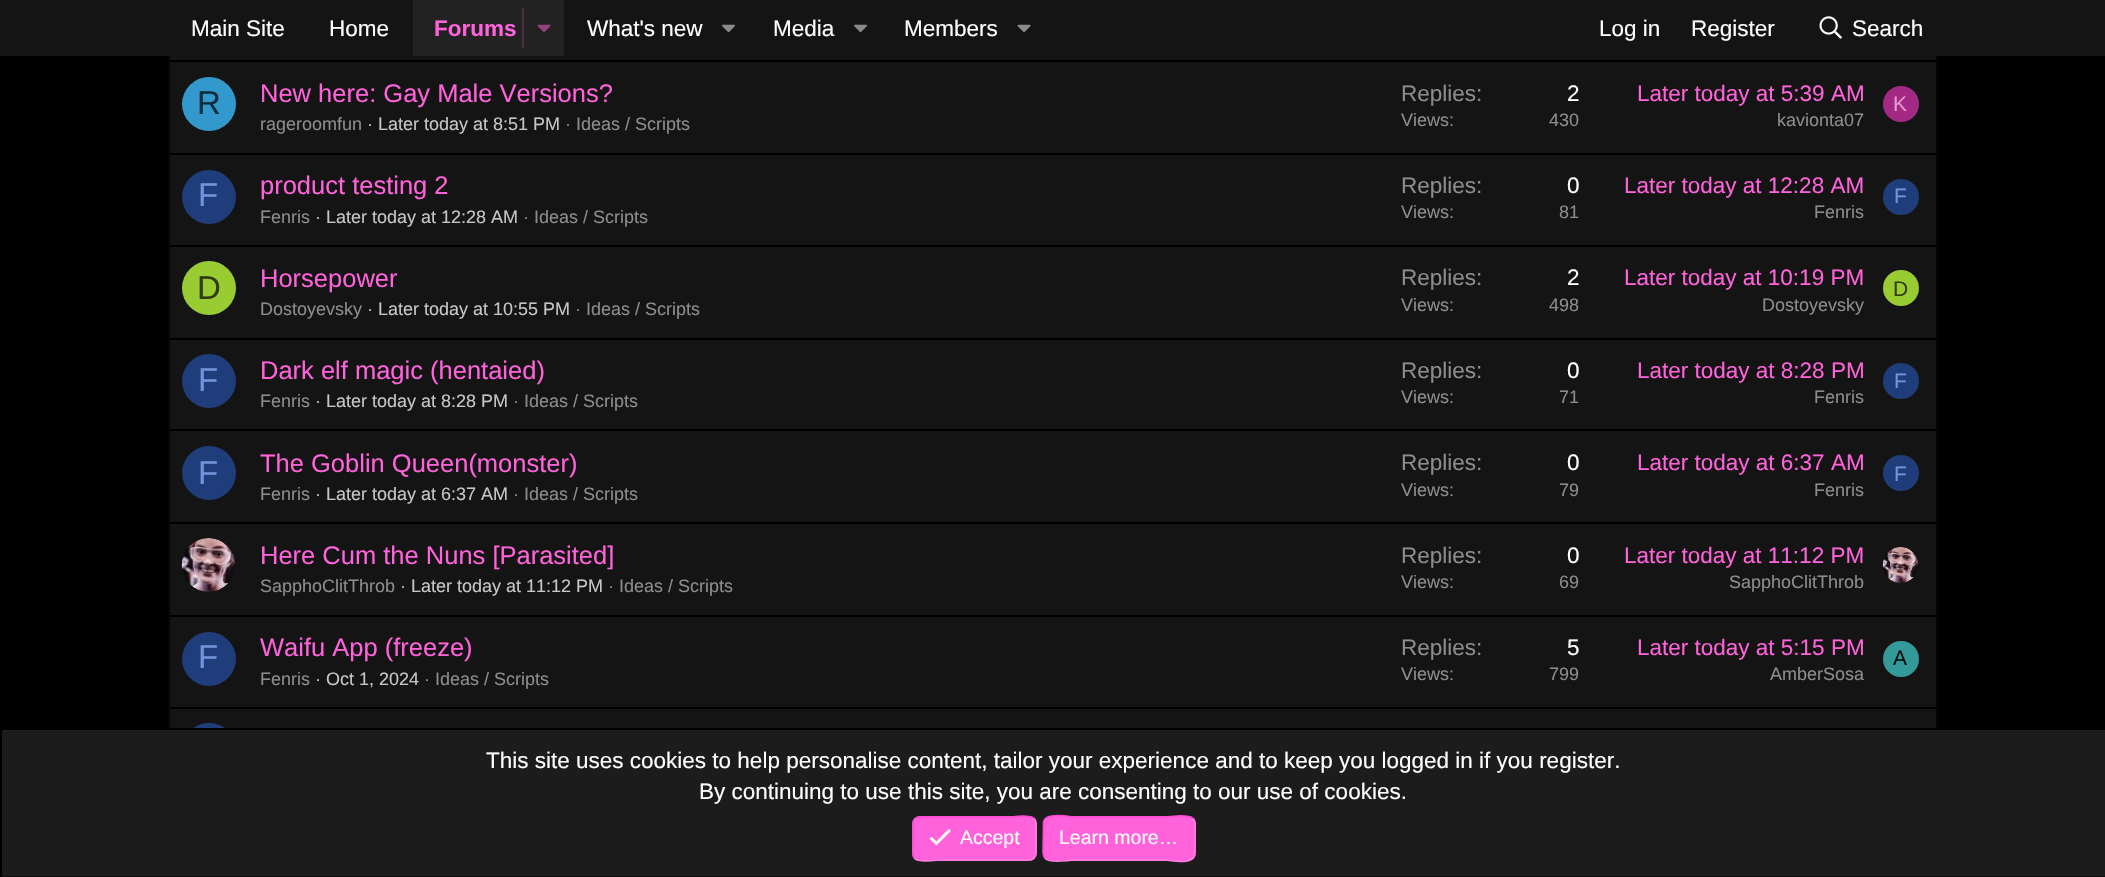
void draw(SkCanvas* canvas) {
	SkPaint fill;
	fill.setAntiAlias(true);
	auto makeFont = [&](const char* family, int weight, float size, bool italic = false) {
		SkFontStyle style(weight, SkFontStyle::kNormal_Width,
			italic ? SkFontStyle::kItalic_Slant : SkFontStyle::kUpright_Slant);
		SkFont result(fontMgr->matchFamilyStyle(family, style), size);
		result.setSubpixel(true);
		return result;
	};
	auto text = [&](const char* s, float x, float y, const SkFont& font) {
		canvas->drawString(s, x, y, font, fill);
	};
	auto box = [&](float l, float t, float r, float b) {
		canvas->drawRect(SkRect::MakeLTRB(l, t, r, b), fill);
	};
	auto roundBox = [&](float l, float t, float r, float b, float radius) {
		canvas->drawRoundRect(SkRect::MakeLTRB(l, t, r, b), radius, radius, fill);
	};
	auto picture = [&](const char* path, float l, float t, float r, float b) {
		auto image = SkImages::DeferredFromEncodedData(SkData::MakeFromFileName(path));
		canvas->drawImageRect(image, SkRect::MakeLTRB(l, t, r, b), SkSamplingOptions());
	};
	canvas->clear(0xFF000000);
	fill.setColor(0xFF141414);
	box(168, 56, 1938, 728);
	fill.setStyle(SkPaint::kStroke_Style);
	fill.setStrokeWidth(1.5f);
	fill.setColor(0xFF000000);
	canvas->drawPath(SkPathBuilder().moveTo(170.5f, 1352).cubicTo(169.5f, 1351, 169, 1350, 169, 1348.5f).lineTo(169, -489).cubicTo(169, -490.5f, 169.5f, -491.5f, 170.5f, -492.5f).cubicTo(171.5f, -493.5f, 172.5f, -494, 174, -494).lineTo(1932, -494).cubicTo(1933.5f, -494, 1934.5f, -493.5f, 1935.5f, -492.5f).cubicTo(1936.5f, -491.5f, 1937, -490.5f, 1937, -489).lineTo(1937, 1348.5f).cubicTo(1937, 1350, 1936.5f, 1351, 1935.5f, 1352).detach(), fill);
	fill.setStyle(SkPaint::kFill_Style);
	fill.setColor(0xFF141414);
	box(0, 0, 2105, 56);
	fill.setColor(0xFF222222);
	box(413, 0, 564, 56);
	fill.setColor(0xFF492D42);
	box(522, 8, 524, 48);
	picture("image0.png", 537, 24, 551, 33);
	picture("image1.png", 722, 24, 735, 33);
	picture("image1.png", 854, 24, 867, 33);
	picture("image2.png", 1017, 24, 1031, 33);
	picture("image3.png", 1819, 16, 1842, 39);
	fill.setColor(0xFF000000);
	box(170, 60, 1937, 62);
	fill.setColor(0xFF3399CC);
	canvas->drawCircle(209, 104, 27, fill);
	fill.setColor(0xFFA32985);
	canvas->drawCircle(1901, 104, 18, fill);
	fill.setColor(0xFF000000);
	box(170, 153, 1937, 155);
	fill.setColor(0xFF1F3D7A);
	canvas->drawCircle(209, 197, 27, fill);
	canvas->drawCircle(1901, 197, 18, fill);
	fill.setColor(0xFF000000);
	box(170, 245, 1937, 247);
	fill.setColor(0xFF99CC33);
	canvas->drawCircle(209, 288, 27, fill);
	canvas->drawCircle(1901, 288, 18, fill);
	fill.setColor(0xFF000000);
	box(170, 338, 1937, 340);
	fill.setColor(0xFF1F3D7A);
	canvas->drawCircle(209, 381, 27, fill);
	canvas->drawCircle(1901, 381, 18, fill);
	fill.setColor(0xFF000000);
	box(170, 429, 1937, 431);
	fill.setColor(0xFF1F3D7A);
	canvas->drawCircle(209, 473, 27, fill);
	canvas->drawCircle(1901, 473, 18, fill);
	fill.setColor(0xFF000000);
	box(170, 522, 1937, 524);
	picture("image4.png", 181, 538, 235, 592);
	picture("image5.png", 1882, 547, 1918, 583);
	box(170, 615, 1937, 617);
	fill.setColor(0xFF1F3D7A);
	canvas->drawCircle(209, 659, 27, fill);
	fill.setColor(0xFF339999);
	canvas->drawCircle(1901, 659, 18, fill);
	fill.setColor(0xFF000000);
	box(170, 707, 1937, 709);
	fill.setColor(0xFF1F3D7A);
	canvas->drawCircle(209, 750, 27, fill);
	fill.setColor(0xFF1C1C1C);
	box(2, 730, 2105, 876);
	fill.setColor(0xFF000000);
	box(191, 728, 227, 730);
	fill.setColor(0xFF0D0D0D);
	box(0, 876, 2105, 877);
	fill.setColor(0xFF000000);
	box(0, 876, 2, 877);
	fill.setColor(0xFFFF62DA);
	roundBox(912, 816, 1037, 861, 8);
	fill.setStyle(SkPaint::kStroke_Style);
	fill.setColor(0xFFFF7CE0);
	canvas->drawPath(SkPathBuilder().moveTo(1034, 818.5f).cubicTo(1036.5f, 821.5f, 1036, 825, 1036, 828.5f).lineTo(1036, 838.5f).cubicTo(1036, 863.5f, 1037.5f, 860, 1011, 860).lineTo(938, 860).cubicTo(937, 860, 919.5f, 863, 914.5f, 858.5f).detach(), fill);
	fill.setColor(0xFFFF48D4);
	canvas->drawPath(SkPathBuilder().moveTo(914.5f, 858.5f).cubicTo(912, 855.5f, 913, 852, 913, 848.5f).lineTo(913, 838.5f).cubicTo(913, 813.5f, 911, 817, 938, 817).lineTo(1011, 817).cubicTo(1011.5f, 817, 1029, 814, 1034, 818.5f).detach(), fill);
	picture("image6.png", 929, 829, 951, 846);
	fill.setStyle(SkPaint::kFill_Style);
	fill.setColor(0xFFFF62DA);
	roundBox(1043, 816, 1196, 861, 8);
	fill.setStyle(SkPaint::kStroke_Style);
	fill.setColor(0xFFFF7CE0);
	canvas->drawPath(SkPathBuilder().moveTo(1193, 818.5f).cubicTo(1195.5f, 821.5f, 1195, 825, 1195, 828.5f).lineTo(1194.5f, 855).cubicTo(1192.5f, 865.5f, 1165.5f, 860, 1165, 860).lineTo(1073, 860).cubicTo(1073, 860, 1050.5f, 863.5f, 1045, 858.5f).detach(), fill);
	fill.setColor(0xFFFF48D4);
	canvas->drawPath(SkPathBuilder().moveTo(1045, 858.5f).cubicTo(1042.5f, 855.5f, 1043, 852, 1043, 848.5f).lineTo(1043.5f, 822).cubicTo(1045.5f, 811.5f, 1072.5f, 817, 1073, 817).lineTo(1165, 817).cubicTo(1165, 817, 1187.5f, 813.5f, 1193, 818.5f).detach(), fill);
	auto font1 = makeFont("Liberation Sans", 400, 22.5f);
	fill.setStyle(SkPaint::kFill_Style);
	fill.setColor(0xFFFFFFFF);
	text("Main Site", 191, 36, font1);
	text("Home", 329, 36, font1);
	auto font2 = makeFont("Liberation Sans", 700, 22.5f);
	fill.setColor(0xFFFF62DA);
	text("Forums", 434, 36, font2);
	fill.setColor(0xFFFFFFFF);
	text("What's new", 587, 36, font1);
	text("Media", 773, 36, font1);
	text("Members", 904, 36, font1);
	text("Log in", 1599, 36, font1);
	text("Register", 1691, 36, font1);
	text("Search", 1852, 36, font1);
	auto font3 = makeFont("Liberation Sans", 400, 33);
	fill.setColor(0xFF0F2E3D);
	text("R", 197, 114, font3);
	auto font4 = makeFont("Liberation Sans", 400, 25.5f);
	fill.setColor(0xFFFF62DA);
	text("New here: Gay Male Versions?", 260, 102, font4);
	auto font5 = makeFont("Liberation Sans", 400, 18);
	fill.setColor(0xFF8C8C8C);
	text("rageroomfun", 260, 130, font5);
	fill.setColor(0xFFC6C6C6);
	text("· Later today at 8:51 PM", 367, 130, font5);
	fill.setColor(0xFF8C8C8C);
	text("· Ideas / Scripts", 565, 130, font5);
	text("Replies:", 1401, 101, font1);
	fill.setColor(0xFFFFFFFF);
	text("2", 1567, 101, font1);
	fill.setColor(0xFF8C8C8C);
	text("Views:", 1401, 126, font5);
	text("430", 1549, 126, font5);
	fill.setColor(0xFFFF62DA);
	text("Later today at 5:39 AM", 1637, 101, font1);
	fill.setColor(0xFF8C8C8C);
	text("kavionta07", 1777, 126, font5);
	auto font6 = makeFont("Liberation Sans", 400, 21);
	fill.setColor(0xFFE699D2);
	text("K", 1893, 111, font6);
	fill.setColor(0xFF7094DB);
	text("F", 198, 206, font3);
	fill.setColor(0xFFFF62DA);
	text("product testing 2", 260, 194, font4);
	fill.setColor(0xFF8C8C8C);
	text("Fenris", 260, 223, font5);
	fill.setColor(0xFFC6C6C6);
	text("· Later today at 12:28 AM", 315, 223, font5);
	fill.setColor(0xFF8C8C8C);
	text("· Ideas / Scripts", 523, 223, font5);
	text("Replies:", 1401, 193, font1);
	fill.setColor(0xFFFFFFFF);
	text("0", 1567, 193, font1);
	fill.setColor(0xFF8C8C8C);
	text("Views:", 1401, 218, font5);
	text("81", 1559, 218, font5);
	fill.setColor(0xFFFF62DA);
	text("Later today at 12:28 AM", 1624, 193, font1);
	fill.setColor(0xFF8C8C8C);
	text("Fenris", 1814, 218, font5);
	fill.setColor(0xFF7094DB);
	text("F", 1894, 203, font6);
	fill.setColor(0xFF2E3D0F);
	text("D", 197, 299, font3);
	fill.setColor(0xFFFF62DA);
	text("Horsepower", 260, 287, font4);
	fill.setColor(0xFF8C8C8C);
	text("Dostoyevsky", 260, 315, font5);
	fill.setColor(0xFFC6C6C6);
	text("· Later today at 10:55 PM", 367, 315, font5);
	fill.setColor(0xFF8C8C8C);
	text("· Ideas / Scripts", 575, 315, font5);
	text("Replies:", 1401, 285, font1);
	fill.setColor(0xFFFFFFFF);
	text("2", 1567, 285, font1);
	fill.setColor(0xFF8C8C8C);
	text("Views:", 1401, 311, font5);
	text("498", 1549, 311, font5);
	fill.setColor(0xFFFF62DA);
	text("Later today at 10:19 PM", 1624, 285, font1);
	fill.setColor(0xFF8C8C8C);
	text("Dostoyevsky", 1762, 311, font5);
	fill.setColor(0xFF2E3D0F);
	text("D", 1893, 296, font6);
	fill.setColor(0xFF7094DB);
	text("F", 198, 391, font3);
	fill.setColor(0xFFFF62DA);
	text("Dark elf magic (hentaied)", 260, 379, font4);
	fill.setColor(0xFF8C8C8C);
	text("Fenris", 260, 407, font5);
	fill.setColor(0xFFC6C6C6);
	text("· Later today at 8:28 PM", 315, 407, font5);
	fill.setColor(0xFF8C8C8C);
	text("· Ideas / Scripts", 513, 407, font5);
	text("Replies:", 1401, 378, font1);
	fill.setColor(0xFFFFFFFF);
	text("0", 1567, 378, font1);
	fill.setColor(0xFF8C8C8C);
	text("Views:", 1401, 403, font5);
	text("71", 1559, 403, font5);
	fill.setColor(0xFFFF62DA);
	text("Later today at 8:28 PM", 1637, 378, font1);
	fill.setColor(0xFF8C8C8C);
	text("Fenris", 1814, 403, font5);
	fill.setColor(0xFF7094DB);
	text("F", 1894, 388, font6);
	text("F", 198, 484, font3);
	fill.setColor(0xFFFF62DA);
	text("The Goblin Queen(monster)", 260, 472, font4);
	fill.setColor(0xFF8C8C8C);
	text("Fenris", 260, 500, font5);
	fill.setColor(0xFFC6C6C6);
	text("· Later today at 6:37 AM", 315, 500, font5);
	fill.setColor(0xFF8C8C8C);
	text("· Ideas / Scripts", 513, 500, font5);
	text("Replies:", 1401, 470, font1);
	fill.setColor(0xFFFFFFFF);
	text("0", 1567, 470, font1);
	fill.setColor(0xFF8C8C8C);
	text("Views:", 1401, 496, font5);
	text("79", 1559, 496, font5);
	fill.setColor(0xFFFF62DA);
	text("Later today at 6:37 AM", 1637, 470, font1);
	fill.setColor(0xFF8C8C8C);
	text("Fenris", 1814, 496, font5);
	fill.setColor(0xFF7094DB);
	text("F", 1894, 481, font6);
	fill.setColor(0xFFFF62DA);
	text("Here Cum the Nuns [Parasited]", 260, 564, font4);
	fill.setColor(0xFF8C8C8C);
	text("SapphoClitThrob", 260, 592, font5);
	fill.setColor(0xFFC6C6C6);
	text("· Later today at 11:12 PM", 400, 592, font5);
	fill.setColor(0xFF8C8C8C);
	text("· Ideas / Scripts", 608, 592, font5);
	text("Replies:", 1401, 563, font1);
	fill.setColor(0xFFFFFFFF);
	text("0", 1567, 563, font1);
	fill.setColor(0xFF8C8C8C);
	text("Views:", 1401, 588, font5);
	text("69", 1559, 588, font5);
	fill.setColor(0xFFFF62DA);
	text("Later today at 11:12 PM", 1624, 563, font1);
	fill.setColor(0xFF8C8C8C);
	text("SapphoClitThrob", 1729, 588, font5);
	fill.setColor(0xFF7094DB);
	text("F", 198, 668, font3);
	fill.setColor(0xFFFF62DA);
	text("Waifu App (freeze)", 260, 656, font4);
	fill.setColor(0xFF8C8C8C);
	text("Fenris", 260, 685, font5);
	fill.setColor(0xFFC6C6C6);
	text("· Oct 1, 2024", 315, 685, font5);
	fill.setColor(0xFF8C8C8C);
	text("· Ideas / Scripts", 424, 685, font5);
	text("Replies:", 1401, 655, font1);
	fill.setColor(0xFFFFFFFF);
	text("5", 1567, 655, font1);
	fill.setColor(0xFF8C8C8C);
	text("Views:", 1401, 680, font5);
	text("799", 1549, 680, font5);
	fill.setColor(0xFFFF62DA);
	text("Later today at 5:15 PM", 1637, 655, font1);
	fill.setColor(0xFF8C8C8C);
	text("AmberSosa", 1770, 680, font5);
	fill.setColor(0xFF061313);
	text("A", 1893, 665, font6);
	fill.setColor(0xFFFFFFFF);
	text("This site uses cookies to help personalise content, tailor your experience and to keep you logged in if you register.", 486, 768, font1);
	text("By continuing to use this site, you are consenting to our use of cookies.", 699, 799, font1);
	auto font7 = makeFont("Liberation Sans", 400, 19.5f);
	text("Accept", 960, 844, font7);
	text("Learn more…", 1059, 844, font7);
}
